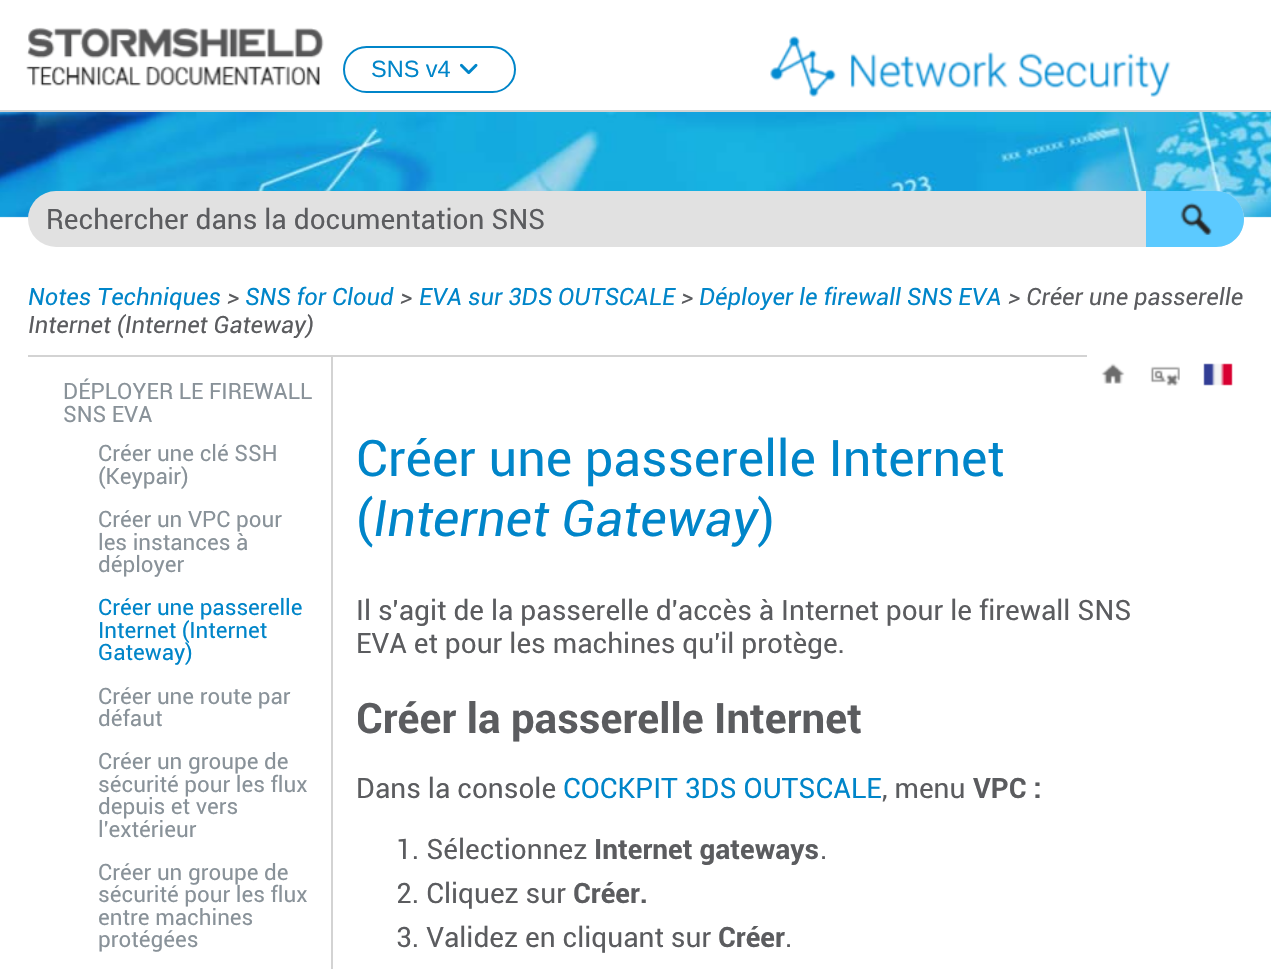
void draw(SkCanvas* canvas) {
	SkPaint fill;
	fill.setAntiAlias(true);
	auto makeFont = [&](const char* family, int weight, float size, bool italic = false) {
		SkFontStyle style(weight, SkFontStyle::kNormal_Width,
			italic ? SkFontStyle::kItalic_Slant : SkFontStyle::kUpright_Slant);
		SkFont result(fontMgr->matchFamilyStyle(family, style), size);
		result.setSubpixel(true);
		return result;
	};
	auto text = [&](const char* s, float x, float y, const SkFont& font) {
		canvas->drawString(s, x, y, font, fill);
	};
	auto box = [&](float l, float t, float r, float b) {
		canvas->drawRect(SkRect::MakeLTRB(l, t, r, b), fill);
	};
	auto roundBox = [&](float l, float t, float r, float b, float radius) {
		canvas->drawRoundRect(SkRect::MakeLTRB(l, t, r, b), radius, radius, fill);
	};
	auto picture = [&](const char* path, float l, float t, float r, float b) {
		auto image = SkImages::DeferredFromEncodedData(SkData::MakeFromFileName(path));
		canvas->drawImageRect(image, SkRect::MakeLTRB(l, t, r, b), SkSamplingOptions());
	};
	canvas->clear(0xFFFFFFFF);
	fill.setColor(0xFFD3D3D3);
	box(0, 110, 1271, 112);
	picture("image0.png", 770, 36, 1171, 97);
	picture("image1.png", 26, 27, 324, 86);
	picture("image2.png", 0, 112, 1271, 218);
	fill.setStyle(SkPaint::kStroke_Style);
	fill.setStrokeWidth(2);
	fill.setColor(0xFF0085C9);
	canvas->drawRoundRect(SkRect::MakeLTRB(344, 47, 515, 92), 22.5f, 22.5f, fill);
	picture("image3.png", 460, 63, 478, 75);
	fill.setStyle(SkPaint::kFill_Style);
	fill.setColor(0xFFE1E1E1);
	roundBox(28, 191, 1244, 247, 28);
	fill.setColor(0xFF5CCAFF);
	canvas->drawPath(SkPathBuilder().moveTo(1146, 191).lineTo(1216, 191).cubicTo(1231.5f, 191, 1244, 203.5f, 1244, 219).cubicTo(1244, 234.5f, 1231.5f, 247, 1216, 247).lineTo(1146, 247).close().detach(), fill);
	picture("image4.png", 1180, 202, 1212, 235);
	fill.setColor(0xFFD3D3D3);
	box(28, 355, 1087, 357);
	picture("image5.png", 1101, 363, 1125, 384);
	picture("image6.png", 1150, 366, 1180, 386);
	picture("image7.png", 1203, 363, 1233, 386);
	box(331, 357, 333, 969);
	auto font1 = makeFont("Liberation Sans", 400, 23.5f);
	fill.setColor(0xFF0085C9);
	text("SNS v4", 371, 77, font1);
	auto font2 = makeFont("Roboto", 400, 28);
	fill.setColor(0xFF5B5C5F);
	text("Rechercher dans la documentation SNS", 46, 229, font2);
	auto font3 = makeFont("Roboto", 400, 23.75f, true);
	fill.setColor(0xFF0085C9);
	text("Notes Techniques", 28, 305, font3);
	fill.setColor(0xFF5B5C5F);
	text(">", 227, 305, font3);
	fill.setColor(0xFF0085C9);
	text("SNS for Cloud", 245, 305, font3);
	fill.setColor(0xFF5B5C5F);
	text(">", 400, 305, font3);
	fill.setColor(0xFF0085C9);
	text("EVA sur 3DS OUTSCALE", 419, 305, font3);
	fill.setColor(0xFF5B5C5F);
	text(">", 681, 305, font3);
	fill.setColor(0xFF0085C9);
	text("Déployer le firewall SNS EVA", 699, 305, font3);
	fill.setColor(0xFF5B5C5F);
	text("> Créer une passerelle", 1008, 305, font3);
	text("Internet (Internet Gateway)", 28, 333, font3);
	auto font4 = makeFont("Roboto", 400, 22.4f);
	fill.setColor(0xFF899299);
	text("DÉPLOYER LE FIREWALL", 63, 399, font4);
	text("SNS EVA", 63, 422, font4);
	text("Créer une clé SSH", 98, 461, font4);
	text("(Keypair)", 98, 484, font4);
	text("Créer un VPC pour", 98, 527, font4);
	text("les instances à", 98, 550, font4);
	text("déployer", 98, 572, font4);
	fill.setColor(0xFF0085C9);
	text("Créer une passerelle", 98, 615, font4);
	text("Internet (Internet", 98, 638, font4);
	text("Gateway)", 98, 660, font4);
	fill.setColor(0xFF899299);
	text("Créer une route par", 98, 704, font4);
	text("défaut", 98, 726, font4);
	text("Créer un groupe de", 98, 769, font4);
	text("sécurité pour les flux", 98, 792, font4);
	text("depuis et vers", 98, 814, font4);
	text("l'extérieur", 98, 837, font4);
	text("Créer un groupe de", 98, 880, font4);
	text("sécurité pour les flux", 98, 902, font4);
	text("entre machines", 98, 925, font4);
	text("protégées", 98, 947, font4);
	auto font5 = makeFont("Roboto", 400, 50.4f);
	fill.setColor(0xFF0085C9);
	text("Créer une passerelle Internet", 356, 476, font5);
	text("(", 356, 536, font5);
	auto font6 = makeFont("Roboto", 400, 50.4f, true);
	text("Internet Gateway", 373, 536, font6);
	text(")", 758, 536, font5);
	fill.setColor(0xFF5B5C5F);
	text("Il s'agit de la passerelle d'accès à Internet pour le firewall SNS", 356, 620, font2);
	text("EVA et pour les machines qu'il protège.", 356, 653, font2);
	auto font7 = makeFont("Roboto", 700, 42);
	text("Créer la passerelle Internet", 356, 733, font7);
	text("Dans la console", 356, 798, font2);
	fill.setColor(0xFF0085C9);
	text("COCKPIT 3DS OUTSCALE", 563, 798, font2);
	fill.setColor(0xFF5B5C5F);
	text(", menu", 882, 798, font2);
	auto font8 = makeFont("Roboto", 700, 28);
	text("VPC :", 973, 798, font8);
	text("1. Sélectionnez", 396, 859, font2);
	text("Internet gateways", 594, 859, font8);
	text(".", 820, 859, font2);
	text("2. Cliquez sur", 396, 903, font2);
	text("Créer.", 573, 903, font8);
	text("3. Validez en cliquant sur", 396, 947, font2);
	text("Créer", 718, 947, font8);
	text(".", 785, 947, font2);
}
